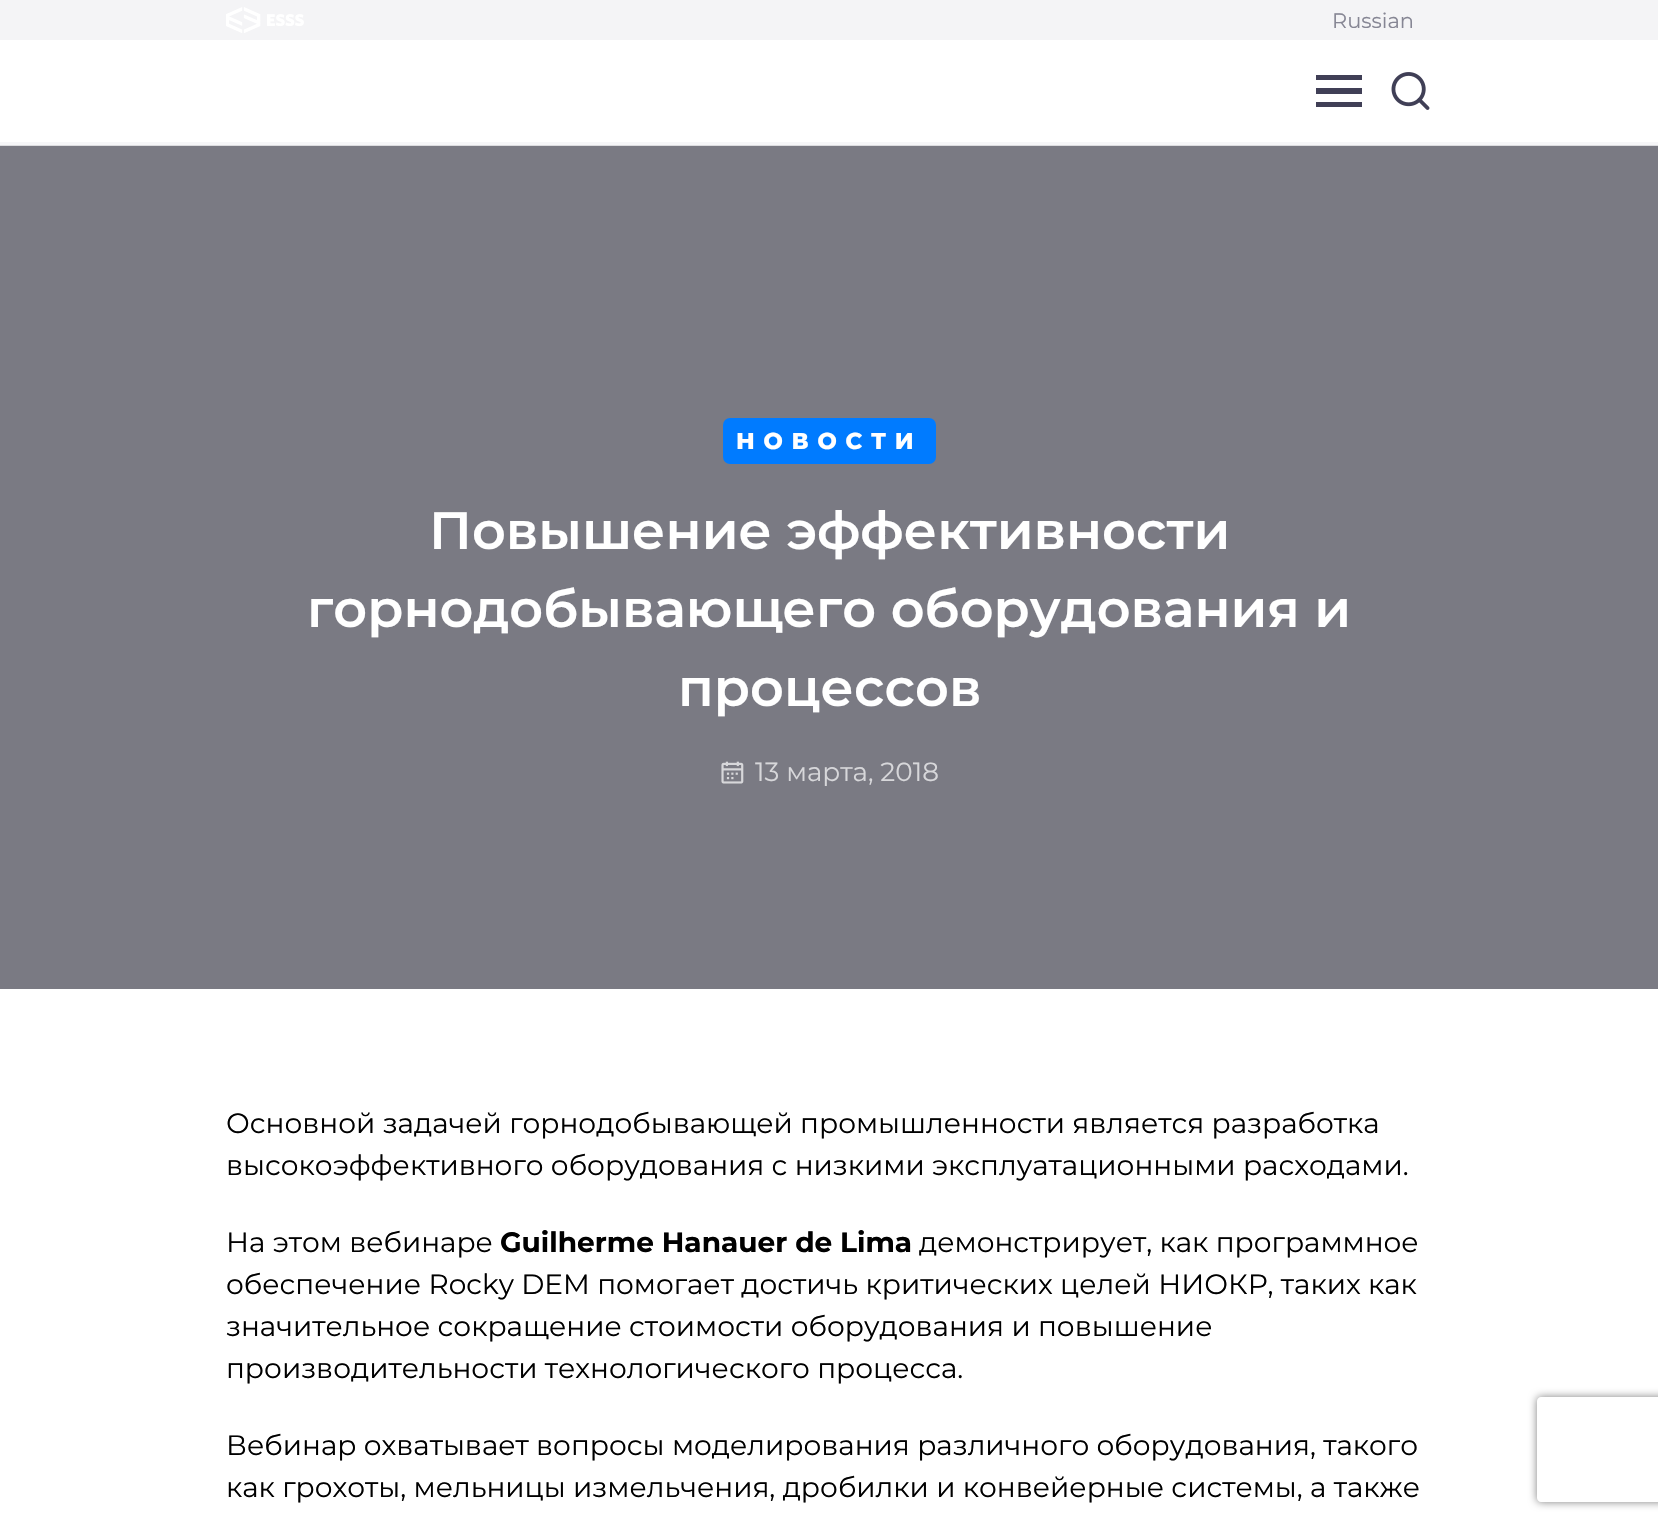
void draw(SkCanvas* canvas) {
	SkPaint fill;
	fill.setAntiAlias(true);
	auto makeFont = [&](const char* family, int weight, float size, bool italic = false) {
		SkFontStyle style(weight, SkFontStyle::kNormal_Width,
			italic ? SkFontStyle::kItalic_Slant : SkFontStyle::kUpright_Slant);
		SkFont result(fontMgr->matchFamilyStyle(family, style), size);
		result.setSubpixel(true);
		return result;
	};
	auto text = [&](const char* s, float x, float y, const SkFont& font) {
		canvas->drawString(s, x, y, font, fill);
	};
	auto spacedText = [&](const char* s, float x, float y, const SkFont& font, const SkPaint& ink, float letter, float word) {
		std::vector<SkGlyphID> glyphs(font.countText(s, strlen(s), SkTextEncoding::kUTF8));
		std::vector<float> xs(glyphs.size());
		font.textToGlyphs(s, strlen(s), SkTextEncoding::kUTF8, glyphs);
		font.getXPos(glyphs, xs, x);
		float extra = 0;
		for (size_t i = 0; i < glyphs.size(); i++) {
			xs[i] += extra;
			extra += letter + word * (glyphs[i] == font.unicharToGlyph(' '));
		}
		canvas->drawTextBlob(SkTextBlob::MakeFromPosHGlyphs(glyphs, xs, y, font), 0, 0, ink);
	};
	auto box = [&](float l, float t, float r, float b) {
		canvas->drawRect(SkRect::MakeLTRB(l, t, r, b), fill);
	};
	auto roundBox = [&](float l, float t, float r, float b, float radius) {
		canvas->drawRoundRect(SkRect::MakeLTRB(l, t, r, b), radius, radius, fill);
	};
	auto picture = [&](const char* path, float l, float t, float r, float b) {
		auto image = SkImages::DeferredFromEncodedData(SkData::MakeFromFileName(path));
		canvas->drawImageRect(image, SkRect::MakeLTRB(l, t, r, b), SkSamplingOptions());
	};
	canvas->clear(0xFFFFFFFF);
	fill.setColor(0xFFF6F6F8);
	box(0, 142, 1658, 145);
	fill.setColor(0xFFF4F4F6);
	box(0, 0, 1658, 40);
	picture("image0.png", 226, 7, 304, 33);
	fill.setColor(0xFF403F56);
	box(1316, 75, 1362, 80);
	box(1316, 88, 1362, 94);
	box(1316, 102, 1362, 107);
	picture("image1.png", 1391, 72, 1430, 110);
	fill.setColor(0xFF7A7A83);
	box(0, 146, 1658, 989);
	fill.setColor(0xFFDCDCDF);
	box(0, 145, 1658, 146);
	fill.setColor(0xFF007BFF);
	roundBox(723, 418, 936, 464, 7);
	picture("image2.png", 721, 761, 744, 784);
	canvas->save();
	canvas->clipPath(SkPathBuilder(SkPathFillType::kEvenOdd).moveTo(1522, 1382).lineTo(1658, 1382).lineTo(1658, 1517).lineTo(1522, 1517).close().moveTo(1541, 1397).lineTo(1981, 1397).cubicTo(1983, 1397, 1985, 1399, 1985, 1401).lineTo(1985, 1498).cubicTo(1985, 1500, 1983, 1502, 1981, 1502).lineTo(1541, 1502).cubicTo(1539, 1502, 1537, 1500, 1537, 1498).lineTo(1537, 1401).cubicTo(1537, 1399, 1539, 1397, 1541, 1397).close().detach(), true);
	fill.setColor(0xFF808080);
	fill.setMaskFilter(SkMaskFilter::MakeBlur(kNormal_SkBlurStyle, 4.5f));
	canvas->drawRoundRect(SkRect::MakeLTRB(1537, 1397, 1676, 1502), 4, 4, fill);
	fill.setMaskFilter(nullptr);
	canvas->restore();
	auto font1 = makeFont("Montserrat", 400, 21);
	fill.setColor(0xFF868694);
	text("Russian", 1332, 28, font1);
	auto font2 = makeFont("Montserrat", 800, 23);
	fill.setColor(0xFFFFFFFF);
	spacedText("НОВОСТИ", 736, 449, font2, fill, 8.75f, 0);
	auto font3 = makeFont("Montserrat", 600, 52.5f);
	text("Повышение эффективности", 429, 549, font3);
	text("горнодобывающего оборудования и", 307, 627, font3);
	text("процессов", 678, 706, font3);
	auto font4 = makeFont("Montserrat", 400, 26.25f);
	fill.setColor(0xFFD7D7DA);
	text("13 марта, 2018", 755, 781, font4);
	auto font5 = makeFont("Montserrat", 400, 28);
	fill.setColor(0xFF000000);
	text("Основной задачей горнодобывающей промышленности является разработка", 226, 1133, font5);
	text("высокоэффективного оборудования с низкими эксплуатационными расходами.", 226, 1175, font5);
	text("На этом вебинаре", 226, 1252, font5);
	auto font6 = makeFont("Montserrat", 700, 28);
	text("Guilherme Hanauer de Lima", 500, 1252, font6);
	text("демонстрирует, как программное", 919, 1252, font5);
	text("обеспечение Rocky DEM помогает достичь критических целей НИОКР, таких как", 226, 1294, font5);
	text("значительное сокращение стоимости оборудования и повышение", 226, 1336, font5);
	text("производительности технологического процесса.", 226, 1378, font5);
	text("Вебинар охватывает вопросы моделирования различного оборудования, такого", 226, 1455, font5);
	text("как грохоты, мельницы измельчения, дробилки и конвейерные системы, а также", 226, 1497, font5);
}
